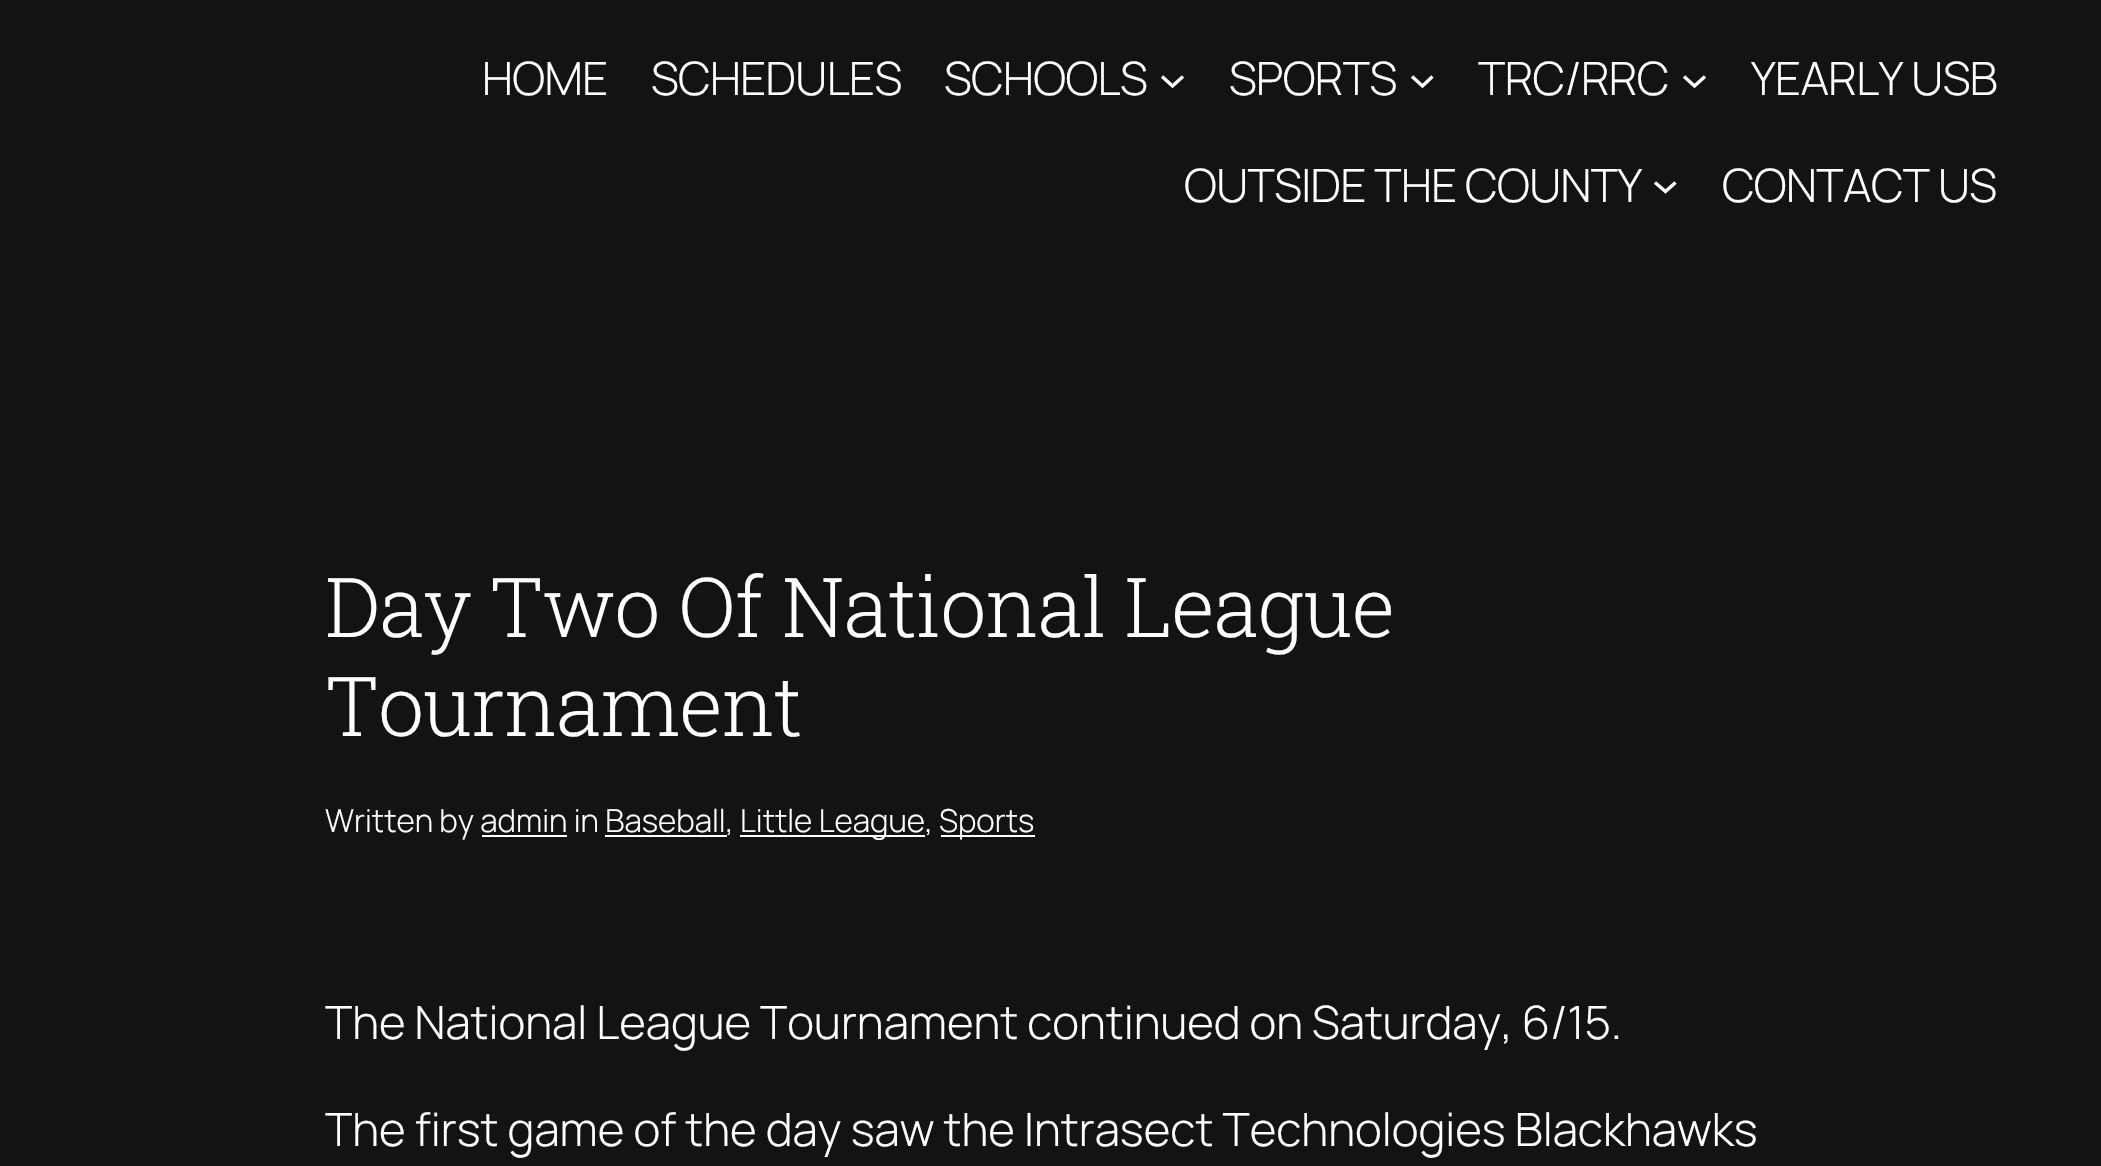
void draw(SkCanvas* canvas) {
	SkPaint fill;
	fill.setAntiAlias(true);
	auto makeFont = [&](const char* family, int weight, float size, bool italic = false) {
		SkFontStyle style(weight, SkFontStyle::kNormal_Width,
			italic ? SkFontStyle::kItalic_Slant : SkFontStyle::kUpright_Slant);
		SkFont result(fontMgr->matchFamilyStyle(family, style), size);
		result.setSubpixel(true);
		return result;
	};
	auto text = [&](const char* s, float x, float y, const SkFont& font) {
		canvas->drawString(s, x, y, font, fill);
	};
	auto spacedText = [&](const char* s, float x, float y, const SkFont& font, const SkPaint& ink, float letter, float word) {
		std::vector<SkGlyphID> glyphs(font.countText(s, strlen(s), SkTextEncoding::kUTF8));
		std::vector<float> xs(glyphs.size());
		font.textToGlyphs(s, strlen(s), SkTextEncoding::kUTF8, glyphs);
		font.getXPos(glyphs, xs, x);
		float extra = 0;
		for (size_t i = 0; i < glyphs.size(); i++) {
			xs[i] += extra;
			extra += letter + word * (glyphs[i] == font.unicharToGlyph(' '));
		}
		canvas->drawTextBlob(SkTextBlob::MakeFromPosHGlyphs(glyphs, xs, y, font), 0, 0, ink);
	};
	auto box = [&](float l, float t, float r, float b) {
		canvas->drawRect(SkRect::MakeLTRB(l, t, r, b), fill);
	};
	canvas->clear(0xFF131313);
	fill.setStyle(SkPaint::kStroke_Style);
	fill.setStrokeWidth(3.4f);
	fill.setColor(0xFFFFFFFF);
	canvas->drawPath(SkPathBuilder().moveTo(1162, 76.5f).lineTo(1172.5f, 86).lineTo(1183, 76.5f).detach(), fill);
	canvas->drawPath(SkPathBuilder().moveTo(1412, 76.5f).lineTo(1422.5f, 86).lineTo(1432.5f, 76.5f).detach(), fill);
	canvas->drawPath(SkPathBuilder().moveTo(1684, 76.5f).lineTo(1694.5f, 86).lineTo(1705, 76.5f).detach(), fill);
	canvas->drawPath(SkPathBuilder().moveTo(1655, 182.5f).lineTo(1665.5f, 191.5f).lineTo(1675.5f, 182.5f).detach(), fill);
	fill.setStyle(SkPaint::kFill_Style);
	box(605, 835, 727, 837);
	box(740, 835, 925, 837);
	box(941, 835, 1035, 837);
	box(482, 835, 567, 837);
	auto font1 = makeFont("Manrope", 300, 45.9f);
	spacedText("HOME", 482, 95, font1, fill, -0.6f, 0);
	spacedText("SCHEDULES", 651, 95, font1, fill, -0.6f, 0);
	spacedText("SCHOOLS", 944, 95, font1, fill, -0.6f, 0);
	spacedText("SPORTS", 1229, 95, font1, fill, -0.6f, 0);
	spacedText("TRC/RRC", 1478, 95, font1, fill, -0.6f, 0);
	spacedText("YEARLY USB", 1751, 95, font1, fill, -0.6f, 0);
	spacedText("OUTSIDE THE COUNTY", 1184, 202, font1, fill, -0.6f, 0);
	spacedText("CONTACT US", 1722, 202, font1, fill, -0.6f, 0);
	auto font2 = makeFont("Roboto Slab", 300, 82.75f);
	spacedText("Day Two Of National League", 325, 637, font2, fill, -1.1f, 0);
	spacedText("Tournament", 325, 736, font2, fill, -1.1f, 0);
	auto font3 = makeFont("Manrope", 300, 31.5f);
	text("Written by admin in Baseball,", 325, 832, font3);
	text("Little League,", 740, 832, font3);
	text("Sports", 939, 832, font3);
	spacedText("The National League Tournament continued on Saturday, 6/15.", 325, 1039, font1, fill, 0, -0.25f);
	text("The first game of the day saw the Intrasect Technologies Blackhawks", 325, 1146, font1);
}
